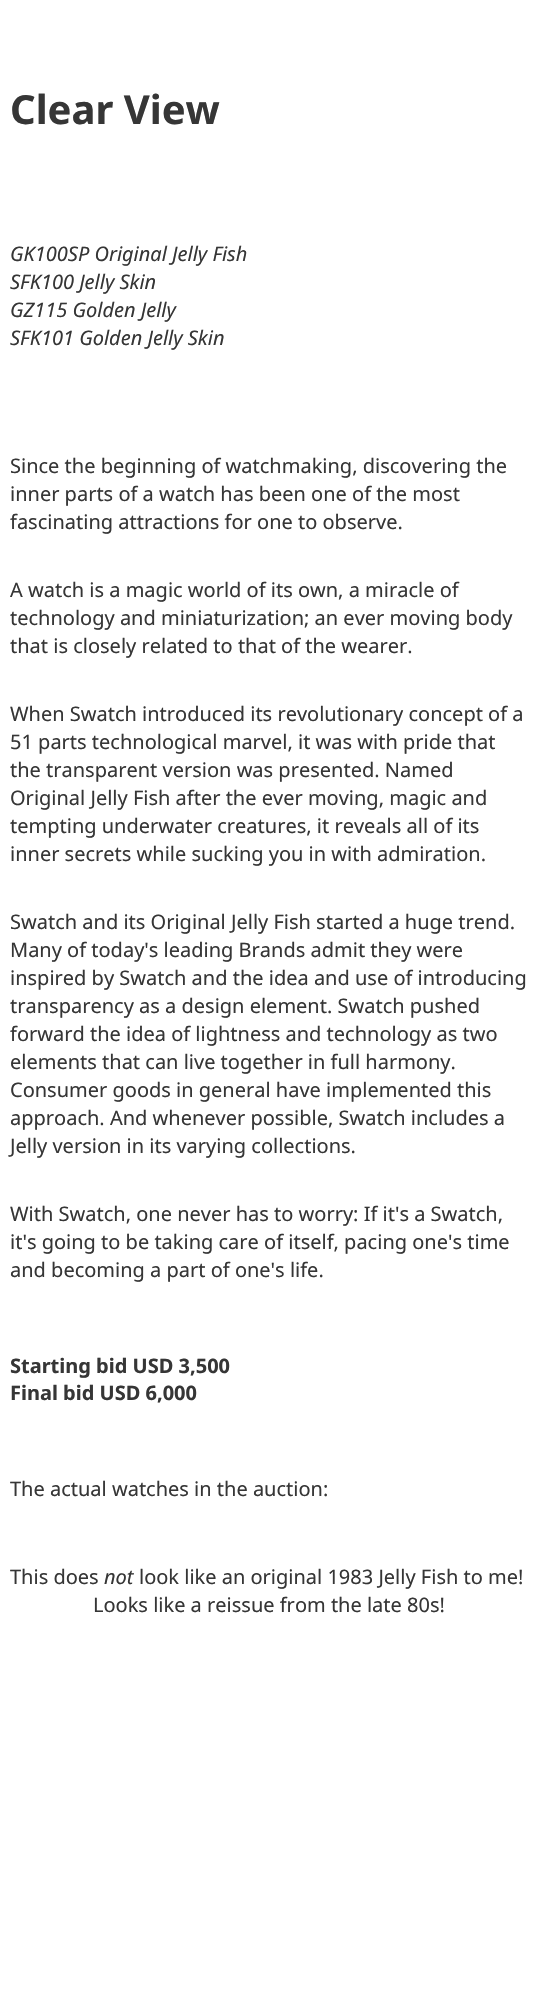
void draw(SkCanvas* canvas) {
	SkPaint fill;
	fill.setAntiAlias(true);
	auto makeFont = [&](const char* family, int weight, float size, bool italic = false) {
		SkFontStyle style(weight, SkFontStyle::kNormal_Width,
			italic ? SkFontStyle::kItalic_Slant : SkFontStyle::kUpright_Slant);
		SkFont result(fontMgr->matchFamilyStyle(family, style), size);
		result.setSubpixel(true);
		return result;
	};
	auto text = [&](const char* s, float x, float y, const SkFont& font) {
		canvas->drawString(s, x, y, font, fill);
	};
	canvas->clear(0xFFFFFFFF);
	auto font1 = makeFont("Noto Sans", 700, 40);
	fill.setColor(0xFF363636);
	text("Clear View", 10, 124, font1);
	auto font2 = makeFont("Noto Sans", 400, 20, true);
	text("GK100SP Original Jelly Fish", 10, 261, font2);
	text("SFK100 Jelly Skin", 10, 289, font2);
	text("GZ115 Golden Jelly", 10, 317, font2);
	text("SFK101 Golden Jelly Skin", 10, 345, font2);
	auto font3 = makeFont("Noto Sans", 400, 20);
	text("Since the beginning of watchmaking, discovering the", 10, 473, font3);
	text("inner parts of a watch has been one of the most", 10, 501, font3);
	text("fascinating attractions for one to observe.", 10, 529, font3);
	text("A watch is a magic world of its own, a miracle of", 10, 597, font3);
	text("technology and miniaturization; an ever moving body", 10, 625, font3);
	text("that is closely related to that of the wearer.", 10, 653, font3);
	text("When Swatch introduced its revolutionary concept of a", 10, 721, font3);
	text("51 parts technological marvel, it was with pride that", 10, 749, font3);
	text("the transparent version was presented. Named", 10, 777, font3);
	text("Original Jelly Fish after the ever moving, magic and", 10, 805, font3);
	text("tempting underwater creatures, it reveals all of its", 10, 833, font3);
	text("inner secrets while sucking you in with admiration.", 10, 861, font3);
	text("Swatch and its Original Jelly Fish started a huge trend.", 10, 929, font3);
	text("Many of today's leading Brands admit they were", 10, 957, font3);
	text("inspired by Swatch and the idea and use of introducing", 10, 985, font3);
	text("transparency as a design element. Swatch pushed", 10, 1013, font3);
	text("forward the idea of lightness and technology as two", 10, 1041, font3);
	text("elements that can live together in full harmony.", 10, 1069, font3);
	text("Consumer goods in general have implemented this", 10, 1097, font3);
	text("approach. And whenever possible, Swatch includes a", 10, 1125, font3);
	text("Jelly version in its varying collections.", 10, 1153, font3);
	text("With Swatch, one never has to worry: If it's a Swatch,", 10, 1221, font3);
	text("it's going to be taking care of itself, pacing one's time", 10, 1249, font3);
	text("and becoming a part of one's life.", 10, 1277, font3);
	auto font4 = makeFont("Noto Sans", 700, 20);
	text("Starting bid USD 3,500", 10, 1373, font4);
	text("Final bid USD 6,000", 10, 1400, font4);
	text("The actual watches in the auction:", 10, 1496, font3);
	text("This does", 10, 1584, font3);
	text("not", 104, 1584, font2);
	text("look like an original 1983 Jelly Fish to me!", 139, 1584, font3);
	text("Looks like a reissue from the late 80s!", 93, 1612, font3);
}
